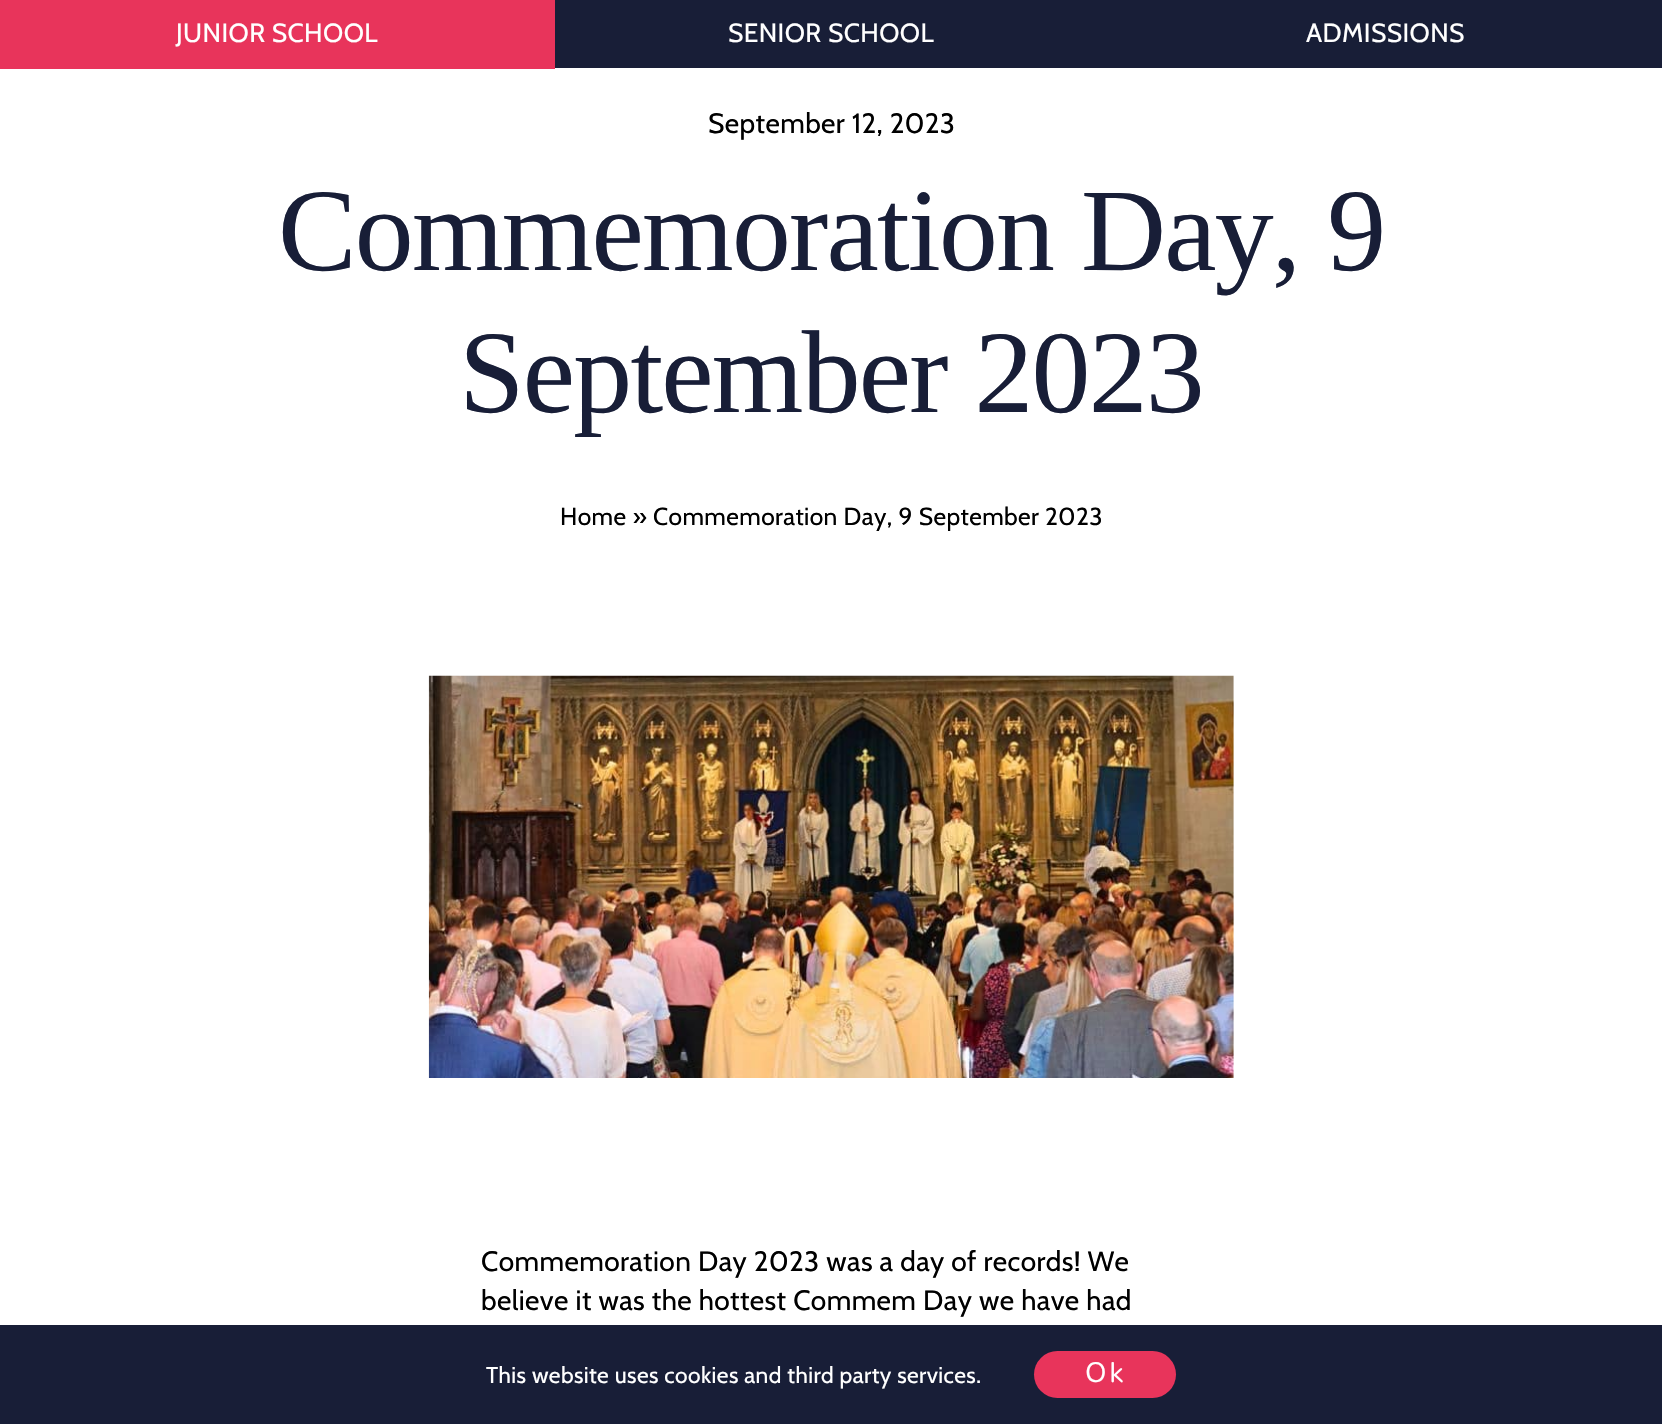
void draw(SkCanvas* canvas) {
	SkPaint fill;
	fill.setAntiAlias(true);
	auto makeFont = [&](const char* family, int weight, float size, bool italic = false) {
		SkFontStyle style(weight, SkFontStyle::kNormal_Width,
			italic ? SkFontStyle::kItalic_Slant : SkFontStyle::kUpright_Slant);
		SkFont result(fontMgr->matchFamilyStyle(family, style), size);
		result.setSubpixel(true);
		return result;
	};
	auto spacedText = [&](const char* s, float x, float y, const SkFont& font, const SkPaint& ink, float letter, float word) {
		std::vector<SkGlyphID> glyphs(font.countText(s, strlen(s), SkTextEncoding::kUTF8));
		std::vector<float> xs(glyphs.size());
		font.textToGlyphs(s, strlen(s), SkTextEncoding::kUTF8, glyphs);
		font.getXPos(glyphs, xs, x);
		float extra = 0;
		for (size_t i = 0; i < glyphs.size(); i++) {
			xs[i] += extra;
			extra += letter + word * (glyphs[i] == font.unicharToGlyph(' '));
		}
		canvas->drawTextBlob(SkTextBlob::MakeFromPosHGlyphs(glyphs, xs, y, font), 0, 0, ink);
	};
	auto box = [&](float l, float t, float r, float b) {
		canvas->drawRect(SkRect::MakeLTRB(l, t, r, b), fill);
	};
	auto roundBox = [&](float l, float t, float r, float b, float radius) {
		canvas->drawRoundRect(SkRect::MakeLTRB(l, t, r, b), radius, radius, fill);
	};
	auto picture = [&](const char* path, float l, float t, float r, float b) {
		auto image = SkImages::DeferredFromEncodedData(SkData::MakeFromFileName(path));
		canvas->drawImageRect(image, SkRect::MakeLTRB(l, t, r, b), SkSamplingOptions());
	};
	canvas->clear(0xFFFFFFFF);
	fill.setColor(0xFF181E37);
	box(555, 0, 1662, 68);
	fill.setColor(0xFFE8345B);
	box(0, 0, 555, 69);
	picture("image0.png", 428, 675, 1234, 1078);
	fill.setColor(0xFF181E37);
	box(0, 1325, 1662, 1424);
	fill.setColor(0xFFE8345B);
	roundBox(1034, 1351, 1176, 1398, 23.5f);
	auto font1 = makeFont("Cabin", 400, 26.25f);
	fill.setColor(0xFFFFFFFF);
	spacedText("JUNIOR SCHOOL", 176, 42, font1, fill, 0.42f, 0);
	spacedText("SENIOR SCHOOL", 728, 42, font1, fill, 0.42f, 0);
	spacedText("ADMISSIONS", 1306, 42, font1, fill, 0.42f, 0);
	auto font2 = makeFont("Cabin", 400, 28);
	fill.setColor(0xFF000000);
	spacedText("September 12, 2023", 708, 133, font2, fill, 0.42f, 0);
	auto font3 = makeFont("Liberation Serif", 400, 117.75f);
	fill.setColor(0xFF181E37);
	spacedText("Commemoration Day, 9", 278, 270, font3, fill, -1.75f, 0);
	spacedText("September 2023", 459, 412, font3, fill, -1.75f, 0);
	auto font4 = makeFont("Cabin", 400, 24.5f);
	fill.setColor(0xFF000000);
	spacedText("Home » Commemoration Day, 9 September 2023", 560, 525, font4, fill, 0.42f, 0);
	spacedText("Commemoration Day 2023 was a day of records! We", 481, 1271, font2, fill, 0.42f, 0);
	spacedText("believe it was the hottest Commem Day we have had", 481, 1310, font2, fill, 0.42f, 0);
	auto font5 = makeFont("Cabin", 400, 22.75f);
	fill.setColor(0xFFFFFFFF);
	spacedText("This website uses cookies and third party services.", 486, 1383, font5, fill, 0.42f, 0);
	auto font6 = makeFont("Nunito", 200, 28);
	spacedText("Ok", 1085, 1382, font6, fill, 3, 0);
}
